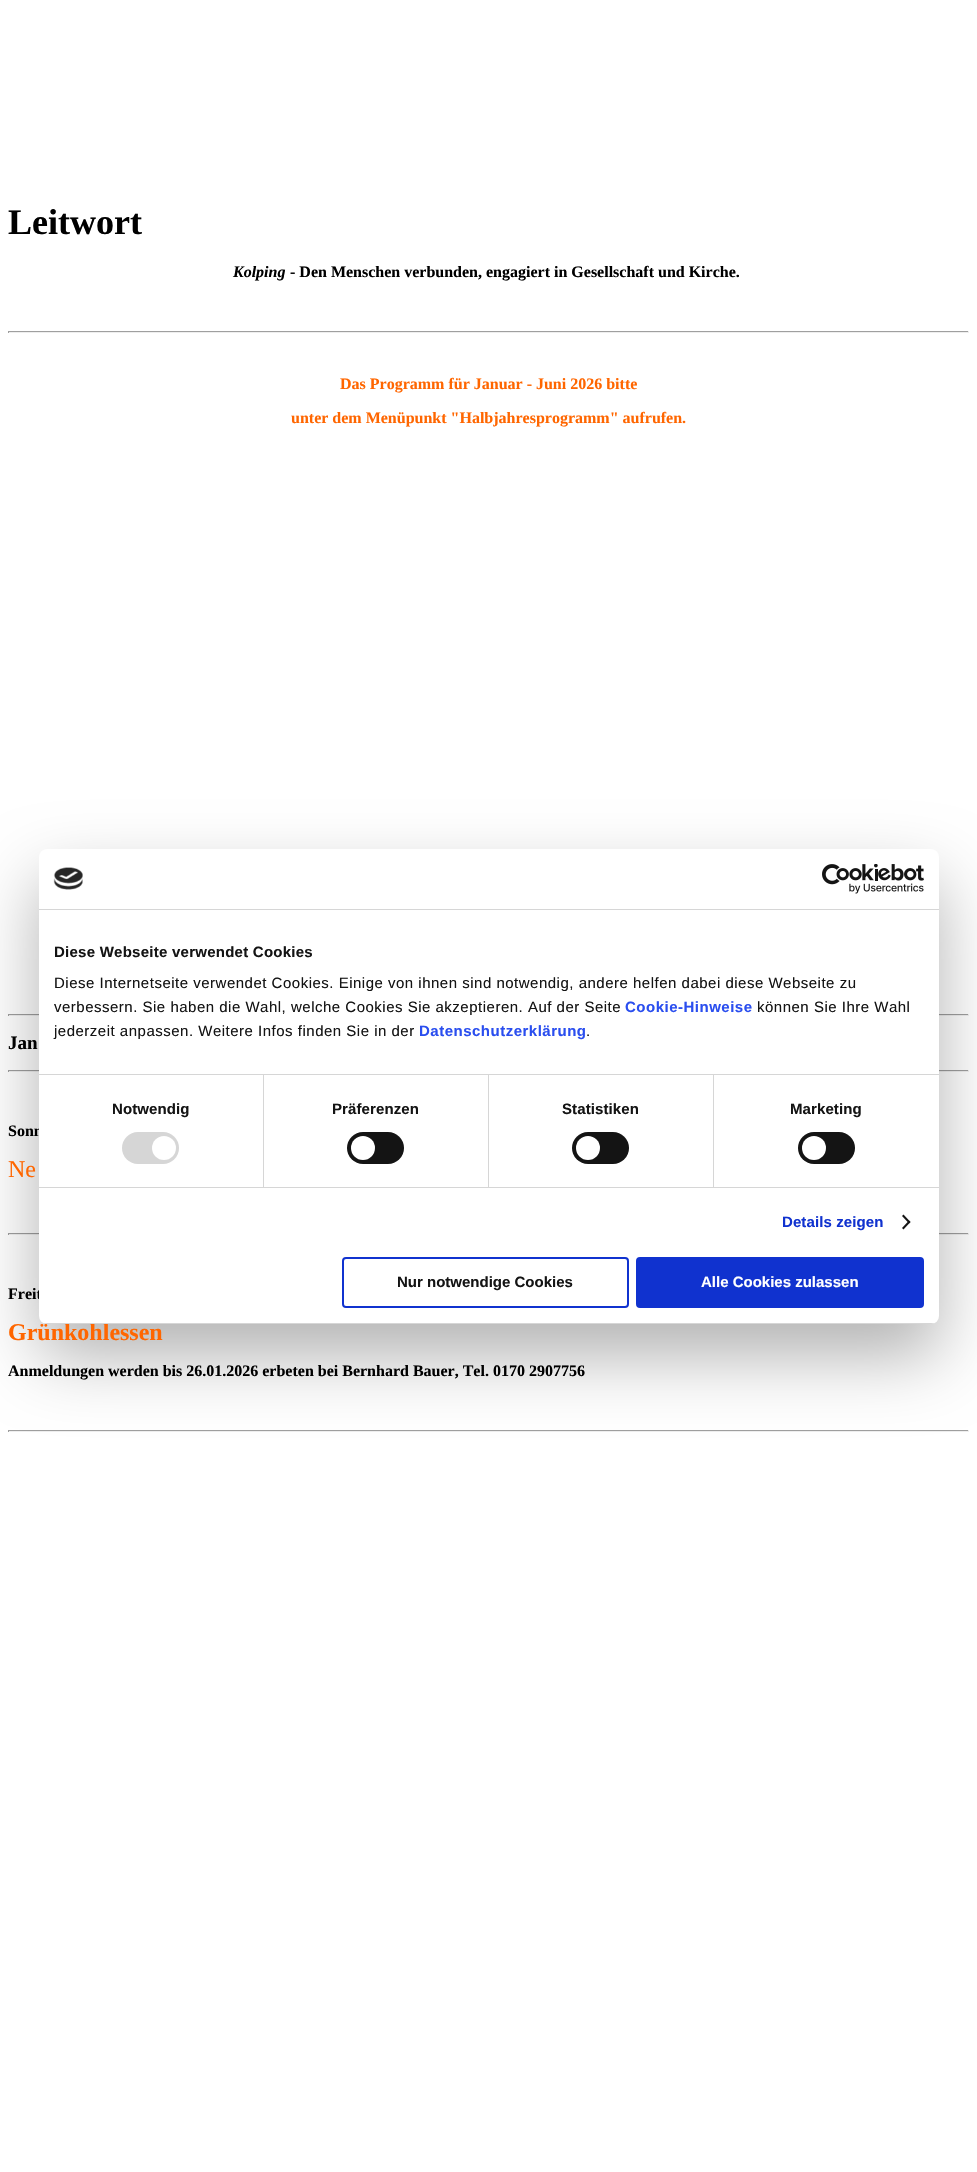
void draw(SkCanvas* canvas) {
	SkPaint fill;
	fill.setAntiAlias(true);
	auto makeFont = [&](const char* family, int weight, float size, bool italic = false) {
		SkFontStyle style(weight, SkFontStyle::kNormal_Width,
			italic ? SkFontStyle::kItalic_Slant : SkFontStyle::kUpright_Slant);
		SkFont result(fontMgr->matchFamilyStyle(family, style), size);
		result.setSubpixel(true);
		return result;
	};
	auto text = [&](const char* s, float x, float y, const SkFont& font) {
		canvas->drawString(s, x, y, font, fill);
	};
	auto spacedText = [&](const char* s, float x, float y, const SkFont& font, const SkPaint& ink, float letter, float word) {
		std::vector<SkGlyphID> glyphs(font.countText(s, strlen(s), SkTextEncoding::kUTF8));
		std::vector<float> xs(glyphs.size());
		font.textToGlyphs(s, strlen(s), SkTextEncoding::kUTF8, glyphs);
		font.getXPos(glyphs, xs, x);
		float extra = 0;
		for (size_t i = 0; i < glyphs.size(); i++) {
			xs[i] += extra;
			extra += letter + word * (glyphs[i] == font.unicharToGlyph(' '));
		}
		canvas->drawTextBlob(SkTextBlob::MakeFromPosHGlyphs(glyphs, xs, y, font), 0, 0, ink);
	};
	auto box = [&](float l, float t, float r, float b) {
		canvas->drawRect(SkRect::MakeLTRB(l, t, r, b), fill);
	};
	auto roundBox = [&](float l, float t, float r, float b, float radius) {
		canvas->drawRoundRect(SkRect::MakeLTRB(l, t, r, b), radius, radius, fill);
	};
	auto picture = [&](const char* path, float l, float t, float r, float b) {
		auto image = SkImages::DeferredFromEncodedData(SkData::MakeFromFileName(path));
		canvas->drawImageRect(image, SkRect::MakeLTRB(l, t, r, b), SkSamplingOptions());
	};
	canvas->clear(0xFFFFFFFF);
	fill.setColor(0xFF9F9F9F);
	box(8, 331, 969, 332);
	fill.setColor(0xFFEEEEEE);
	box(968, 331, 969, 333);
	box(8, 332, 969, 333);
	fill.setColor(0xFF9F9F9F);
	box(8, 331, 9, 333);
	box(8, 1014, 969, 1015);
	fill.setColor(0xFFEEEEEE);
	box(968, 1014, 969, 1016);
	box(8, 1015, 969, 1016);
	fill.setColor(0xFF9F9F9F);
	box(8, 1014, 9, 1016);
	box(8, 1070, 969, 1071);
	fill.setColor(0xFFEEEEEE);
	box(968, 1070, 969, 1072);
	box(8, 1071, 969, 1072);
	fill.setColor(0xFF9F9F9F);
	box(8, 1070, 9, 1072);
	box(8, 1233, 969, 1234);
	fill.setColor(0xFFEEEEEE);
	box(968, 1233, 969, 1235);
	box(8, 1234, 969, 1235);
	fill.setColor(0xFF9F9F9F);
	box(8, 1233, 9, 1235);
	box(8, 1430, 969, 1431);
	fill.setColor(0xFFEEEEEE);
	box(968, 1430, 969, 1432);
	box(8, 1431, 969, 1432);
	fill.setColor(0xFF9F9F9F);
	box(8, 1430, 9, 1432);
	fill.setColor(0x4D000000);
	fill.setMaskFilter(SkMaskFilter::MakeBlur(kNormal_SkBlurStyle, 34));
	canvas->drawRoundRect(SkRect::MakeLTRB(39, 881, 939, 1356), 8, 8, fill);
	fill.setMaskFilter(nullptr);
	auto font1 = makeFont("Liberation Serif", 700, 36);
	fill.setColor(0xFF000000);
	text("Leitwort", 8, 234, font1);
	auto font2 = makeFont("Liberation Serif", 700, 16, true);
	text("Kolping", 233, 277, font2);
	auto font3 = makeFont("Liberation Serif", 700, 16);
	text("- Den Menschen verbunden, engagiert in Gesellschaft und Kirche.", 290, 277, font3);
	fill.setColor(0xFFFF6600);
	text("Das Programm für Januar - Juni 2026 bitte", 340, 389, font3);
	text("unter dem Menüpunkt \"Halbjahresprogramm\" aufrufen.", 291, 423, font3);
	auto font4 = makeFont("Liberation Serif", 700, 19);
	fill.setColor(0xFF000000);
	text("Jan", 8, 1049, font4);
	text("Sonn", 8, 1136, font3);
	auto font5 = makeFont("Liberation Serif", 400, 24);
	fill.setColor(0xFFFF6600);
	text("Ne", 8, 1177, font5);
	fill.setColor(0xFF000000);
	text("Freit", 8, 1299, font3);
	auto font6 = makeFont("Liberation Serif", 700, 24);
	fill.setColor(0xFFFF6600);
	text("Grünkohlessen", 8, 1340, font6);
	fill.setColor(0xFF000000);
	text("Anmeldungen werden bis 26.01.2026 erbeten bei Bernhard Bauer, Tel. 0170 2907756", 8, 1376, font3);
	fill.setColor(0xFFFFFFFF);
	roundBox(39, 849, 939, 1324, 8);
	fill.setColor(0xFFD6D6D6);
	box(39, 909, 939, 910);
	picture("image0.png", 53, 867, 83, 890);
	picture("image1.png", 822, 864, 924, 894);
	box(39, 1074, 939, 1075);
	auto font7 = makeFont("Liberation Sans", 700, 15);
	fill.setColor(0xFF141414);
	spacedText("Diese Webseite verwendet Cookies", 54, 957, font7, fill, 0.25f, 0);
	auto font8 = makeFont("Liberation Sans", 400, 15);
	spacedText("Diese Internetseite verwendet Cookies. Einige von ihnen sind notwendig, andere helfen dabei diese Webseite zu", 54, 988, font8, fill, 0.5f, 0);
	spacedText("verbessern. Sie haben die Wahl, welche Cookies Sie akzeptieren. Auf der Seite", 54, 1012, font8, fill, 0.5f, 0);
	fill.setColor(0xFF2A4EEF);
	spacedText("Cookie-Hinweise", 625, 1012, font7, fill, 0.5f, 0);
	fill.setColor(0xFF141414);
	spacedText("können Sie Ihre Wahl", 757, 1012, font8, fill, 0.5f, 0);
	spacedText("jederzeit anpassen. Weitere Infos finden Sie in der", 54, 1036, font8, fill, 0.5f, 0);
	fill.setColor(0xFF2A4EEF);
	spacedText("Datenschutzerklärung", 419, 1036, font7, fill, 0.5f, 0);
	fill.setColor(0xFF141414);
	spacedText(".", 586, 1036, font8, fill, 0.5f, 0);
	fill.setColor(0xFFD6D6D6);
	box(39, 1187, 939, 1188);
	box(263, 1075, 264, 1187);
	fill.setColor(0xFF141414);
	spacedText("Notwendig", 112, 1114, font7, fill, 0.1f, 0);
	fill.setColor(0xFFD6D6D6);
	roundBox(122, 1132, 179, 1164, 16);
	fill.setColor(0xFFFFFFFF);
	canvas->drawCircle(164, 1148, 12, fill);
	fill.setColor(0xFFD6D6D6);
	box(488, 1075, 489, 1187);
	fill.setColor(0xFF141414);
	spacedText("Präferenzen", 332, 1114, font7, fill, 0.1f, 0);
	roundBox(347, 1132, 404, 1164, 16);
	fill.setColor(0xFFFFFFFF);
	canvas->drawCircle(363, 1148, 12, fill);
	fill.setColor(0xFFD6D6D6);
	box(713, 1075, 714, 1187);
	fill.setColor(0xFF141414);
	spacedText("Statistiken", 562, 1114, font7, fill, 0.1f, 0);
	roundBox(572, 1132, 629, 1164, 16);
	fill.setColor(0xFFFFFFFF);
	canvas->drawCircle(588, 1148, 12, fill);
	fill.setColor(0xFF141414);
	spacedText("Marketing", 790, 1114, font7, fill, 0.1f, 0);
	roundBox(798, 1132, 855, 1164, 16);
	fill.setColor(0xFFFFFFFF);
	canvas->drawCircle(814, 1148, 12, fill);
	fill.setColor(0xFF1032CF);
	spacedText("Details zeigen", 782, 1227, font7, fill, 0.1f, 0);
	fill.setColor(0xFF141414);
	canvas->drawPath(SkPathBuilder().moveTo(903.5f, 1214.5f).lineTo(910.5f, 1222).lineTo(909, 1223.5f).lineTo(902, 1216).close().detach(), fill);
	canvas->drawPath(SkPathBuilder().moveTo(909, 1220.5f).lineTo(910.5f, 1222).lineTo(903.5f, 1229.5f).lineTo(902, 1228).close().detach(), fill);
	canvas->save();
	canvas->clipPath(SkPathBuilder().moveTo(47, 849).lineTo(931, 849).cubicTo(935.5f, 849, 939, 852.5f, 939, 857).lineTo(939, 1316).cubicTo(939, 1320.5f, 935.5f, 1324, 931, 1324).lineTo(47, 1324).cubicTo(42.5f, 1324, 39, 1320.5f, 39, 1316).lineTo(39, 857).cubicTo(39, 852.5f, 42.5f, 849, 47, 849).close().detach(), true);
	fill.setColor(0xFFD6D6D6);
	box(39, 1323, 939, 1324);
	canvas->restore();
	fill.setStyle(SkPaint::kStroke_Style);
	fill.setStrokeWidth(2);
	fill.setColor(0xFF1032CF);
	canvas->drawRoundRect(SkRect::MakeLTRB(343, 1258, 628, 1307), 3, 3, fill);
	fill.setStyle(SkPaint::kFill_Style);
	fill.setColor(0xFF141414);
	text("Nur notwendige Cookies", 397, 1287, font7);
	fill.setColor(0xFF1032CF);
	canvas->drawRoundRect(SkRect::MakeLTRB(637, 1258, 923, 1307), 3, 3, fill);
	fill.setStyle(SkPaint::kStroke_Style);
	canvas->drawRoundRect(SkRect::MakeLTRB(637, 1258, 923, 1307), 3, 3, fill);
	fill.setStyle(SkPaint::kFill_Style);
	fill.setColor(0xFFFFFFFF);
	text("Alle Cookies zulassen", 701, 1287, font7);
}
